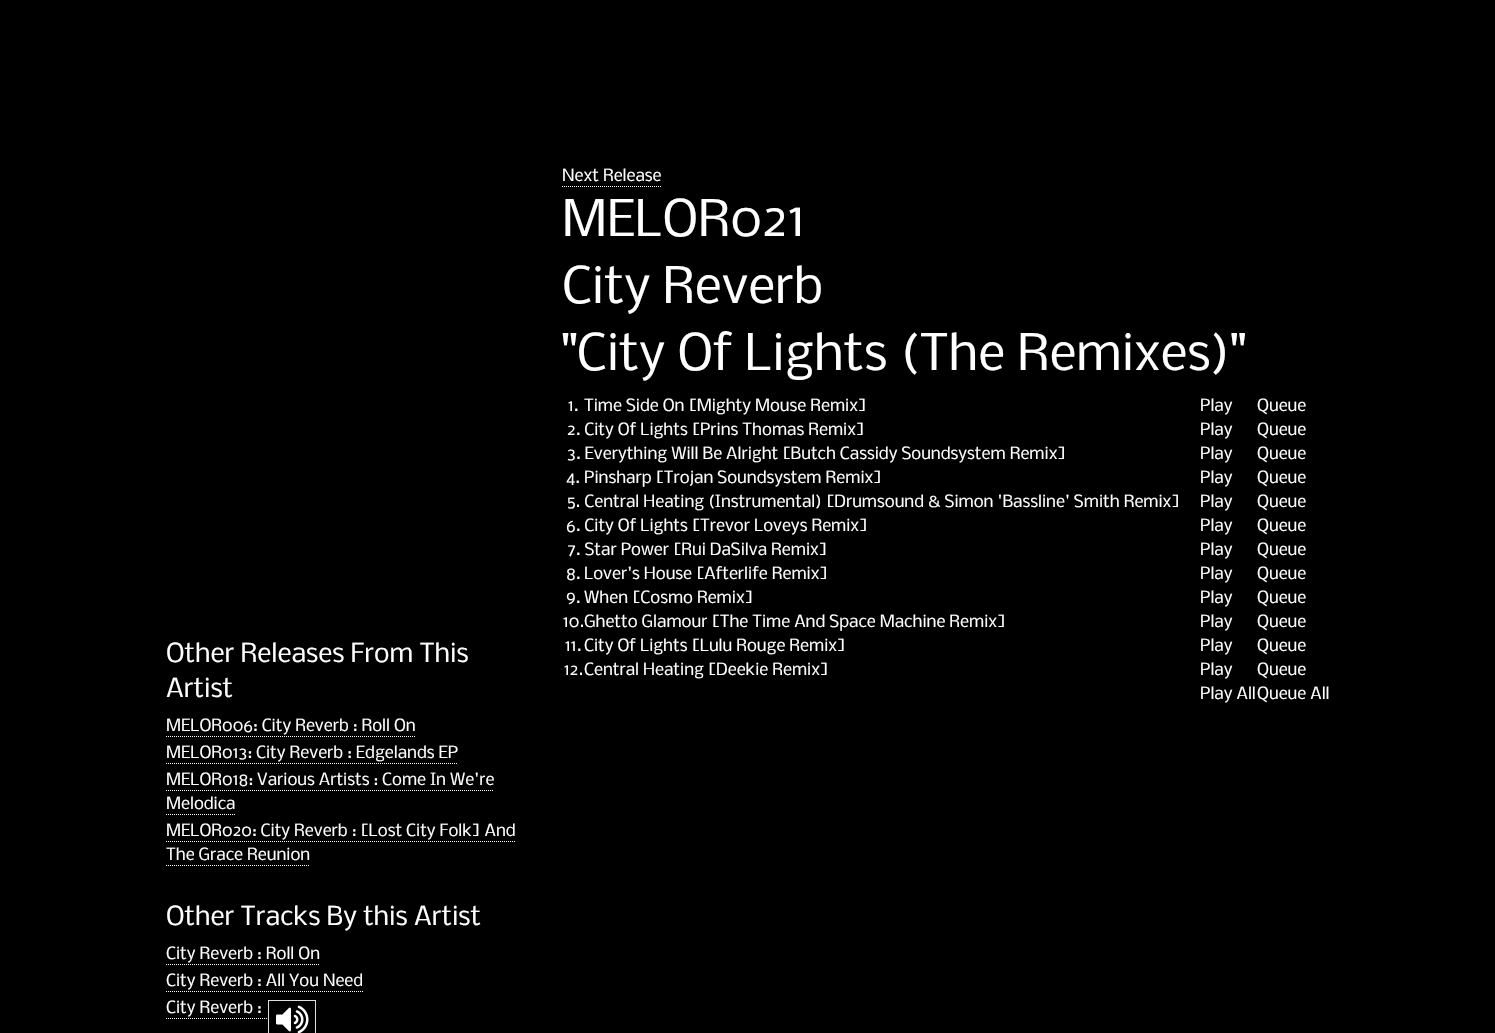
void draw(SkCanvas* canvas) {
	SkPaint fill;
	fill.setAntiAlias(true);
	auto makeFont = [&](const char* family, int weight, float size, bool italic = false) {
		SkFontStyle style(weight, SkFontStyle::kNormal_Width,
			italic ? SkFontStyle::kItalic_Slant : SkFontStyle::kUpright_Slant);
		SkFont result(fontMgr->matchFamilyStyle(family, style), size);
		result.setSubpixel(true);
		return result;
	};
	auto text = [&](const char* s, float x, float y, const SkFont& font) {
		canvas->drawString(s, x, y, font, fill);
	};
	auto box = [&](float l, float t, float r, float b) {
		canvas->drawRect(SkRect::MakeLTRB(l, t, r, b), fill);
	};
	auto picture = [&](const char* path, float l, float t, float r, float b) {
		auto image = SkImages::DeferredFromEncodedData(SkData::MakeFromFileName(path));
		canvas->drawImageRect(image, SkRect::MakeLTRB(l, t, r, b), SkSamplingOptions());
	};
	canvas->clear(0xFF000000);
	fill.setStyle(SkPaint::kStroke_Style);
	fill.setStrokeWidth(1);
	fill.setColor(0xFFFFFFFF);
	fill.setPathEffect(SkDashPathEffect::Make({{1, 1}}, 0));
	canvas->drawPath(SkPathBuilder().moveTo(562, 186.5f).lineTo(662, 186.5f).detach(), fill);
	fill.setPathEffect(nullptr);
	fill.setPathEffect(SkDashPathEffect::Make({{1, 1}}, 0));
	canvas->drawPath(SkPathBuilder().moveTo(166, 736.5f).lineTo(415, 736.5f).detach(), fill);
	fill.setPathEffect(nullptr);
	fill.setPathEffect(SkDashPathEffect::Make({{1, 1}}, 0));
	canvas->drawPath(SkPathBuilder().moveTo(166, 763.5f).lineTo(458, 763.5f).detach(), fill);
	fill.setPathEffect(nullptr);
	fill.setPathEffect(SkDashPathEffect::Make({{1, 1}}, 0));
	canvas->drawPath(SkPathBuilder().moveTo(166, 790.5f).lineTo(494, 790.5f).detach(), fill);
	fill.setPathEffect(nullptr);
	fill.setPathEffect(SkDashPathEffect::Make({{1, 1}}, 0));
	canvas->drawPath(SkPathBuilder().moveTo(166, 814.5f).lineTo(235, 814.5f).detach(), fill);
	fill.setPathEffect(nullptr);
	fill.setPathEffect(SkDashPathEffect::Make({{1, 1}}, 0));
	canvas->drawPath(SkPathBuilder().moveTo(166, 841.5f).lineTo(515, 841.5f).detach(), fill);
	fill.setPathEffect(nullptr);
	fill.setPathEffect(SkDashPathEffect::Make({{1, 1}}, 0));
	canvas->drawPath(SkPathBuilder().moveTo(166, 865.5f).lineTo(310, 865.5f).detach(), fill);
	fill.setPathEffect(nullptr);
	fill.setPathEffect(SkDashPathEffect::Make({{1, 1}}, 0));
	canvas->drawPath(SkPathBuilder().moveTo(166, 964.5f).lineTo(320, 964.5f).detach(), fill);
	fill.setPathEffect(nullptr);
	fill.setPathEffect(SkDashPathEffect::Make({{1, 1}}, 0));
	canvas->drawPath(SkPathBuilder().moveTo(166, 991.5f).lineTo(363, 991.5f).detach(), fill);
	fill.setPathEffect(nullptr);
	fill.setPathEffect(SkDashPathEffect::Make({{1, 1}}, 0));
	canvas->drawPath(SkPathBuilder().moveTo(166, 1018.5f).lineTo(312, 1018.5f).detach(), fill);
	fill.setPathEffect(nullptr);
	fill.setStyle(SkPaint::kFill_Style);
	fill.setColor(0xFF000000);
	box(270, 1018, 311, 1019);
	fill.setColor(0xFFE0E0E0);
	box(268, 1000, 316, 1001);
	box(315, 1000, 316, 1033);
	box(268, 1000, 269, 1033);
	picture("image0.png", 276, 1005, 309, 1033);
	auto font1 = makeFont("Nobile", 400, 16);
	fill.setColor(0xFFFFFFFF);
	text("Next Release", 562, 181, font1);
	auto font2 = makeFont("Nobile", 400, 48);
	text("MELOR021", 562, 236, font2);
	text("City Reverb", 562, 303, font2);
	text("\"City Of Lights (The Remixes)\"", 562, 370, font2);
	text("1.", 568, 411, font1);
	text("Time Side On [Mighty Mouse Remix]", 584, 411, font1);
	text("Play", 1200, 411, font1);
	text("Queue", 1257, 411, font1);
	text("2. City Of Lights [Prins Thomas Remix]", 567, 435, font1);
	text("Play", 1200, 435, font1);
	text("Queue", 1257, 435, font1);
	text("3. Everything Will Be Alright [Butch Cassidy Soundsystem Remix]", 567, 459, font1);
	text("Play", 1200, 459, font1);
	text("Queue", 1257, 459, font1);
	text("4. Pinsharp [Trojan Soundsystem Remix]", 566, 483, font1);
	text("Play", 1200, 483, font1);
	text("Queue", 1257, 483, font1);
	text("5. Central Heating (Instrumental) [Drumsound & Simon 'Bassline' Smith Remix]", 567, 507, font1);
	text("Play", 1200, 507, font1);
	text("Queue", 1257, 507, font1);
	text("6. City Of Lights [Trevor Loveys Remix]", 566, 531, font1);
	text("Play", 1200, 531, font1);
	text("Queue", 1257, 531, font1);
	text("7. Star Power [Rui DaSilva Remix]", 567, 555, font1);
	text("Play", 1200, 555, font1);
	text("Queue", 1257, 555, font1);
	text("8.", 566, 579, font1);
	text("Lover's House [Afterlife Remix]", 584, 579, font1);
	text("Play", 1200, 579, font1);
	text("Queue", 1257, 579, font1);
	text("9.", 566, 603, font1);
	text("When [Cosmo Remix]", 584, 603, font1);
	text("Play", 1200, 603, font1);
	text("Queue", 1257, 603, font1);
	text("10.", 563, 627, font1);
	text("Ghetto Glamour [The Time And Space Machine Remix]", 584, 627, font1);
	text("Play", 1200, 627, font1);
	text("Queue", 1257, 627, font1);
	text("11.", 565, 651, font1);
	text("City Of Lights [Lulu Rouge Remix]", 584, 651, font1);
	text("Play", 1200, 651, font1);
	text("Queue", 1257, 651, font1);
	text("12.", 564, 675, font1);
	text("Central Heating [Deekie Remix]", 584, 675, font1);
	text("Play", 1200, 675, font1);
	text("Queue", 1257, 675, font1);
	text("Play All", 1200, 699, font1);
	text("Queue All", 1257, 699, font1);
	auto font3 = makeFont("Nobile", 400, 25);
	text("Other Releases From This", 166, 662, font3);
	text("Artist", 166, 697, font3);
	text("MELOR006: City Reverb : Roll On", 166, 731, font1);
	text("MELOR013: City Reverb : Edgelands EP", 166, 758, font1);
	text("MELOR018: Various Artists : Come In We're", 166, 785, font1);
	text("Melodica", 166, 809, font1);
	text("MELOR020: City Reverb : [Lost City Folk] And", 166, 836, font1);
	text("The Grace Reunion", 166, 860, font1);
	text("Other Tracks By this Artist", 166, 925, font3);
	text("City Reverb : Roll On", 166, 959, font1);
	text("City Reverb : All You Need", 166, 986, font1);
	text("City Reverb :", 166, 1013, font1);
}
